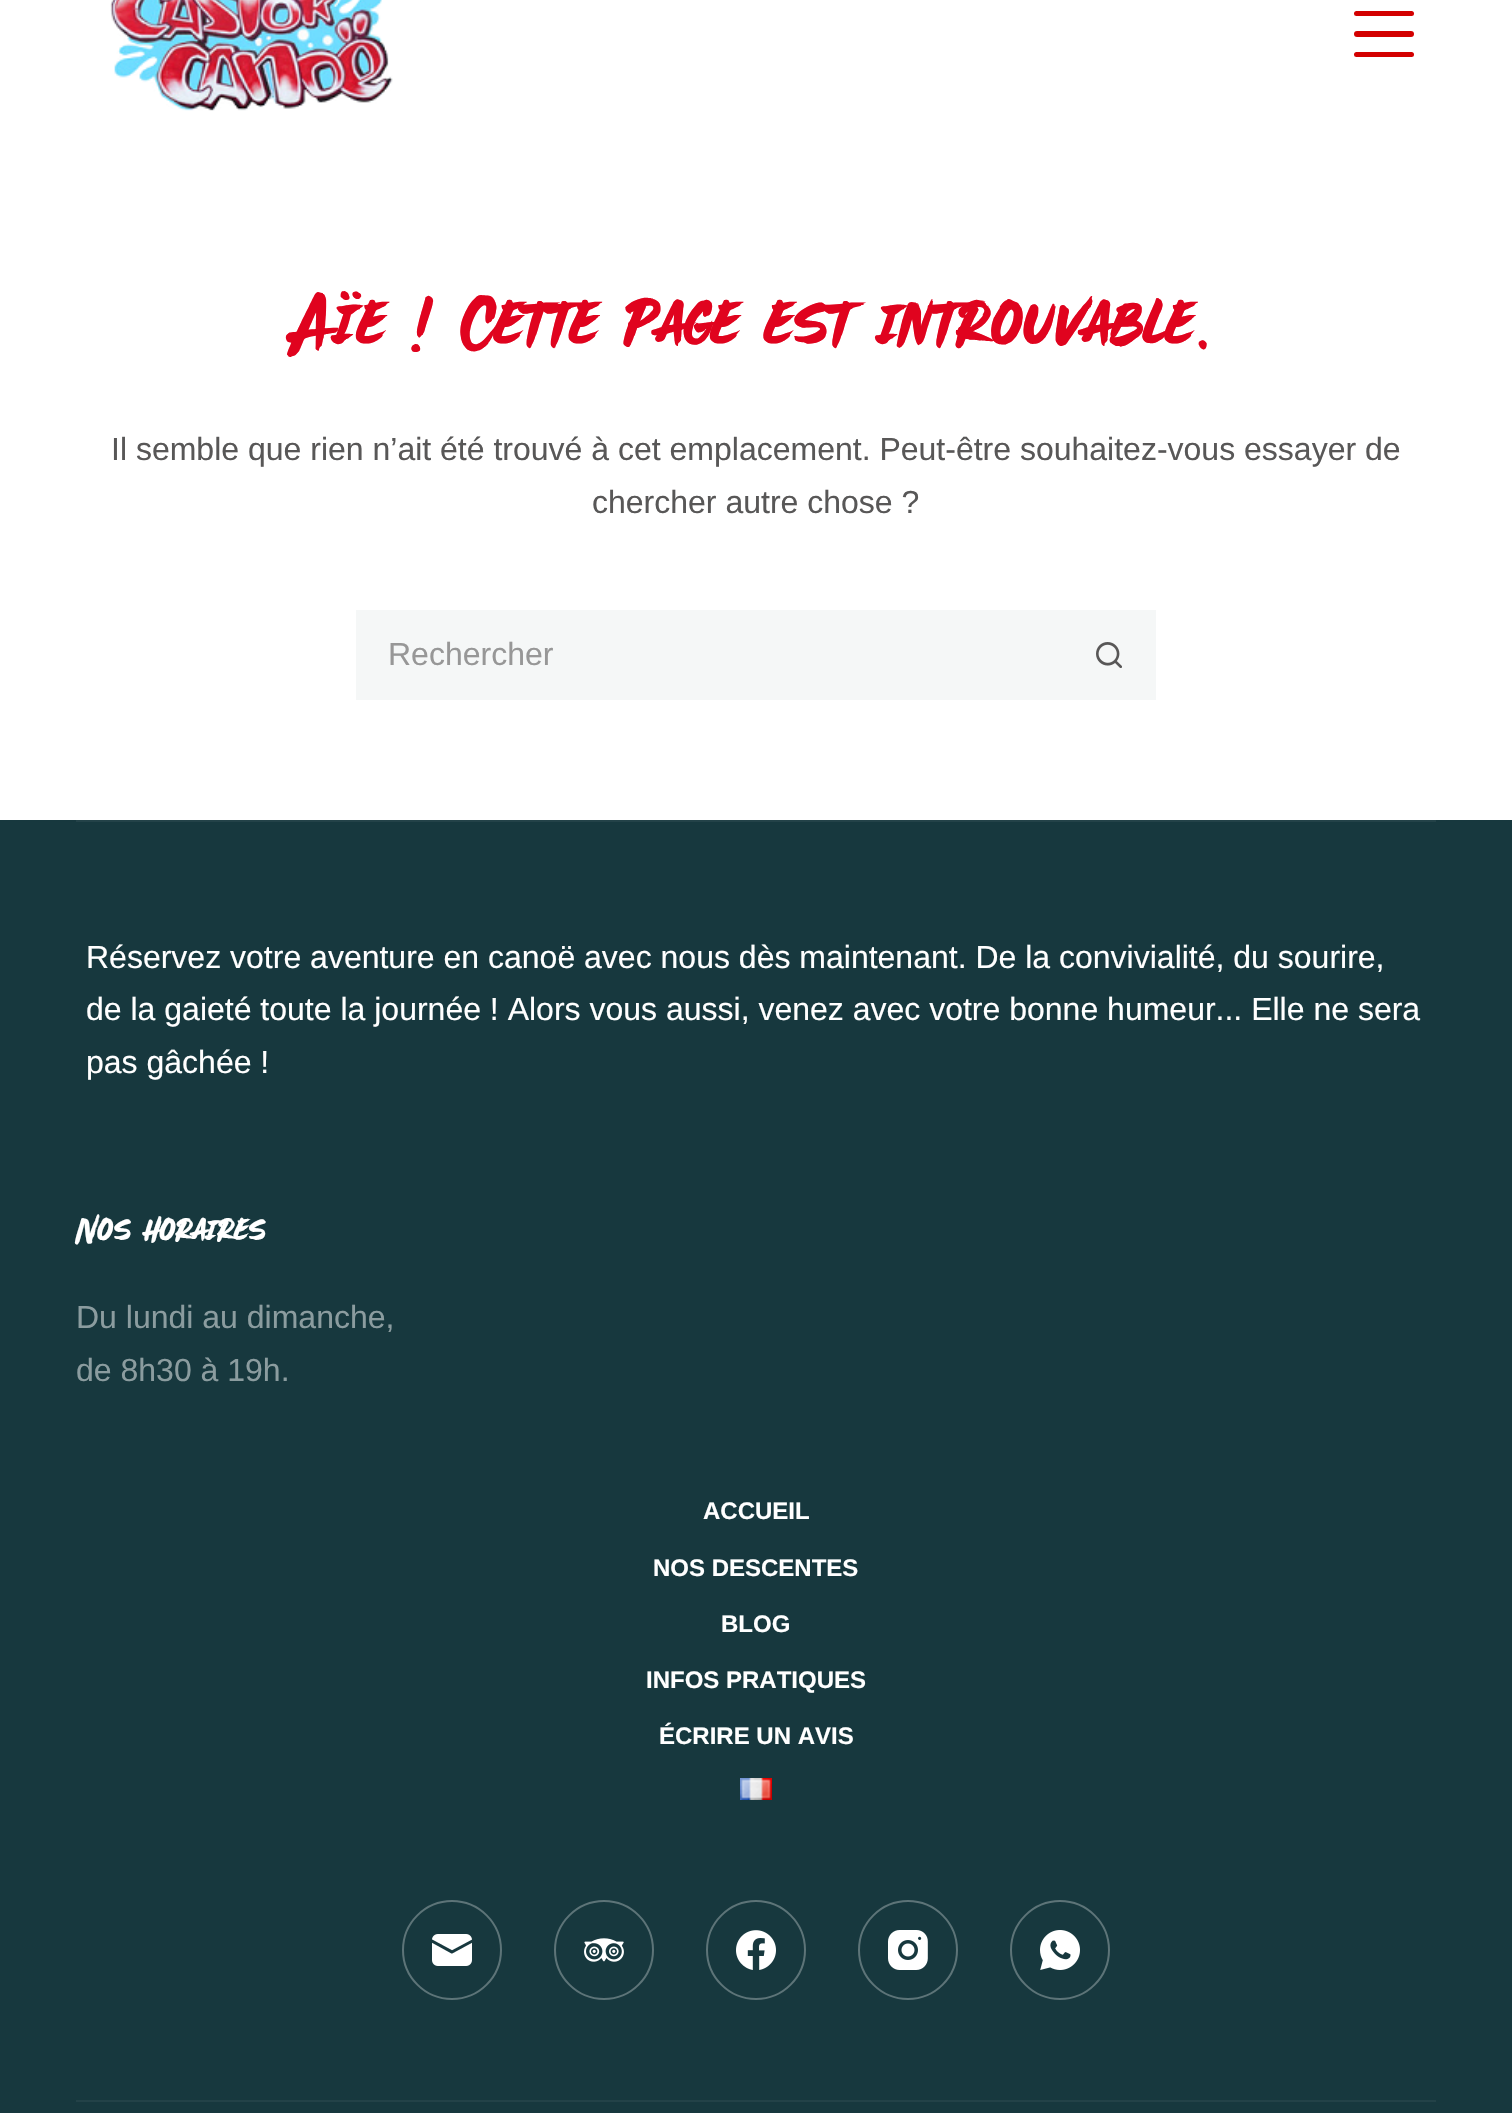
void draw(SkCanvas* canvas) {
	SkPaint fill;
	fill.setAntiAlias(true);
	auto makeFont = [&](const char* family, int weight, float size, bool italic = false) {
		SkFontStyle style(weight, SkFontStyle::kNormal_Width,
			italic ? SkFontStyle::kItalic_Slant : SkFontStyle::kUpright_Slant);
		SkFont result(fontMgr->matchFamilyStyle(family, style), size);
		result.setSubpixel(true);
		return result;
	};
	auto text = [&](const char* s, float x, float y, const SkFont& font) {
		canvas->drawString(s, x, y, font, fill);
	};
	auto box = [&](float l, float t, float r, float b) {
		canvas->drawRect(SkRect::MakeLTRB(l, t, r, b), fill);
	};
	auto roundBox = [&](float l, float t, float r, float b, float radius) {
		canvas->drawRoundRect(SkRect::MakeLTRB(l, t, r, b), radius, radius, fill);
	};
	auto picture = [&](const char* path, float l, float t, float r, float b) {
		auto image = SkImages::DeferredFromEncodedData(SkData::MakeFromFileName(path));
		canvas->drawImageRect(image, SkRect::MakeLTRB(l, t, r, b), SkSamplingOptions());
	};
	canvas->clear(0xFFFFFFFF);
	picture("image0.png", 110, 0, 393, 111);
	fill.setColor(0xFFD30000);
	roundBox(1354, 11, 1414, 16, 2.5f);
	roundBox(1354, 31, 1414, 37, 3);
	roundBox(1354, 52, 1414, 57, 2.5f);
	fill.setColor(0xFFF5F7F7);
	box(356, 610, 1156, 700);
	picture("image1.png", 1096, 642, 1122, 668);
	fill.setColor(0xFF17383E);
	box(0, 820, 1512, 2113);
	fill.setColor(0xFF234248);
	box(76, 820, 1436, 822);
	box(76, 2100, 1436, 2102);
	picture("image2.png", 740, 1778, 772, 1800);
	fill.setStyle(SkPaint::kStroke_Style);
	fill.setStrokeWidth(2);
	fill.setColor(0xFF5D7478);
	canvas->drawCircle(452, 1950, 49, fill);
	picture("image3.png", 432, 1934, 472, 1966);
	canvas->drawCircle(604, 1950, 49, fill);
	picture("image4.png", 584, 1938, 624, 1962);
	canvas->drawCircle(756, 1950, 49, fill);
	picture("image5.png", 736, 1930, 776, 1970);
	canvas->drawCircle(908, 1950, 49, fill);
	picture("image6.png", 888, 1930, 928, 1970);
	canvas->drawCircle(1060, 1950, 49, fill);
	picture("image7.png", 1040, 1930, 1080, 1970);
	auto font1 = makeFont("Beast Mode", 400, 80);
	fill.setStyle(SkPaint::kFill_Style);
	fill.setColor(0xFFE0031E);
	text("Aïe ! Cette page est introuvable.", 295, 352, font1);
	auto font2 = makeFont("Liberation Sans", 400, 32);
	fill.setColor(0xFF585757);
	text("Il semble que rien n’ait été trouvé à cet emplacement. Peut-être souhaitez-vous essayer de", 111, 460, font2);
	text("chercher autre chose ?", 592, 513, font2);
	fill.setColor(0xFF979797);
	text("Rechercher", 388, 665, font2);
	fill.setColor(0xFFFFFFFF);
	text("Réservez votre aventure en canoë avec nous dès maintenant. De la convivialité, du sourire,", 86, 968, font2);
	text("de la gaieté toute la journée ! Alors vous aussi, venez avec votre bonne humeur... Elle ne sera", 86, 1020, font2);
	text("pas gâchée !", 86, 1073, font2);
	auto font3 = makeFont("Beast Mode", 400, 40);
	text("Nos horaires", 76, 1244, font3);
	fill.setColor(0xFF8B9C9F);
	text("Du lundi au dimanche,", 76, 1328, font2);
	text("de 8h30 à 19h.", 76, 1381, font2);
	auto font4 = makeFont("Liberation Sans", 700, 24);
	fill.setColor(0xFFFFFFFF);
	text("ACCUEIL", 703, 1519, font4);
	text("NOS DESCENTES", 653, 1576, font4);
	text("BLOG", 721, 1632, font4);
	text("INFOS PRATIQUES", 646, 1688, font4);
	text("ÉCRIRE UN AVIS", 659, 1744, font4);
}
